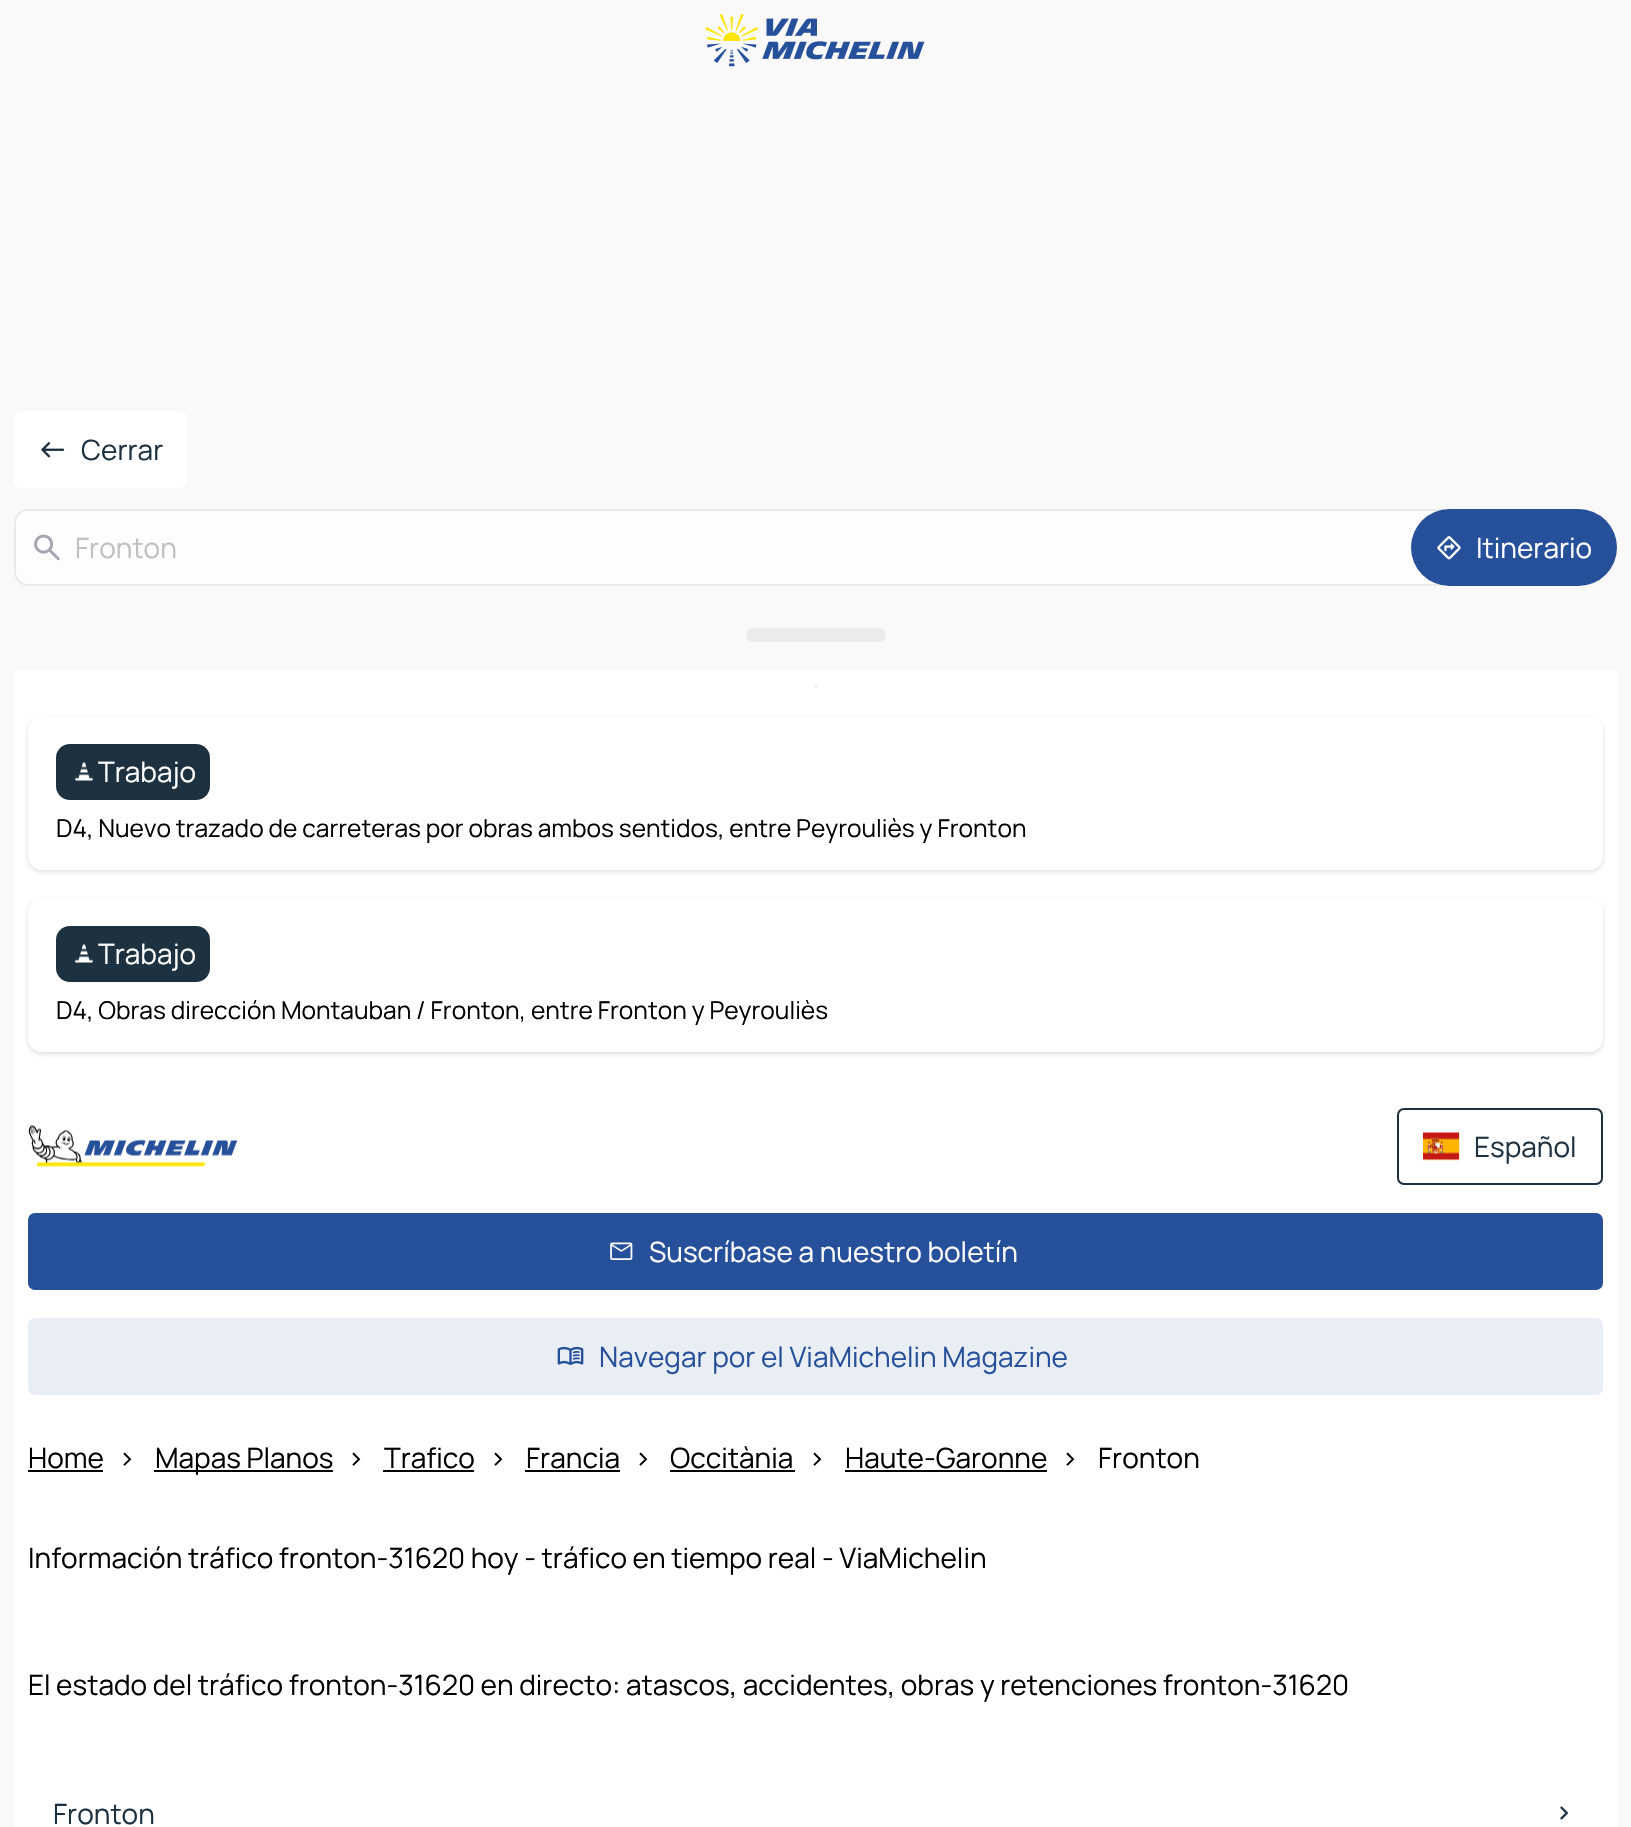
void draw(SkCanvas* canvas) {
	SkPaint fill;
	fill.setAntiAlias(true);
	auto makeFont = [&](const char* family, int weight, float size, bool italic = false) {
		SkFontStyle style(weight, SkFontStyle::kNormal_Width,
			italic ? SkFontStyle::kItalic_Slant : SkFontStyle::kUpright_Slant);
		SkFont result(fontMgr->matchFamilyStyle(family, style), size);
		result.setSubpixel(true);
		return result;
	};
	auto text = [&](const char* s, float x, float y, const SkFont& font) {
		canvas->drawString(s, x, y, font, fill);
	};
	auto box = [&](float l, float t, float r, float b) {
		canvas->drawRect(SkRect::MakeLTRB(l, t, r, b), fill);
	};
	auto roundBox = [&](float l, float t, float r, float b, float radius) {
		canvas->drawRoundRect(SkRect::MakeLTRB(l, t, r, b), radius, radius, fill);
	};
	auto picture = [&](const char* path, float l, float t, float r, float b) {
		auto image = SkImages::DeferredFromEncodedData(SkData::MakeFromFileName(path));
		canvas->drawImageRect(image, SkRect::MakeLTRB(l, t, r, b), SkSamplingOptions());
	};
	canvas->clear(0xFFF9F9F9);
	picture("image0.png", 705, 14, 925, 67);
	fill.setColor(0xFFFFFFFF);
	roundBox(14, 411, 187, 488, 7);
	picture("image1.png", 41, 442, 65, 458);
	fill.setColor(0xFFFDFDFE);
	canvas->drawRoundRect(SkRect::MakeLTRB(15, 510, 1452, 585), 13, 13, fill);
	fill.setStyle(SkPaint::kStroke_Style);
	fill.setStrokeWidth(2);
	fill.setColor(0xFFE8EAEC);
	canvas->drawRoundRect(SkRect::MakeLTRB(15, 510, 1452, 585), 13, 13, fill);
	picture("image2.png", 34, 534, 60, 561);
	fill.setStyle(SkPaint::kFill_Style);
	fill.setColor(0xFF27509B);
	roundBox(1411, 509, 1617, 586, 38.5f);
	picture("image3.png", 1437, 536, 1461, 560);
	fill.setColor(0xFFECECEC);
	roundBox(746, 628, 886, 642, 7);
	fill.setColor(0xFFFFFFFF);
	box(14, 670, 1617, 1827);
	fill.setColor(0xFFF2F2F2);
	box(814, 684, 818, 688);
	fill.setColor(0x1A1D3140);
	fill.setMaskFilter(SkMaskFilter::MakeBlur(kNormal_SkBlurStyle, 2.5f));
	canvas->drawRoundRect(SkRect::MakeLTRB(28, 718, 1603, 872), 14, 14, fill);
	fill.setMaskFilter(nullptr);
	fill.setColor(0x0F1D3140);
	fill.setMaskFilter(SkMaskFilter::MakeBlur(kNormal_SkBlurStyle, 2));
	canvas->drawRoundRect(SkRect::MakeLTRB(28, 718, 1603, 872), 14, 14, fill);
	fill.setMaskFilter(nullptr);
	fill.setColor(0xFFFFFFFF);
	roundBox(28, 716, 1603, 870, 14);
	fill.setColor(0xFF1D3140);
	roundBox(56, 744, 210, 800, 14);
	picture("image4.png", 75, 762, 93, 781);
	fill.setColor(0x1A1D3140);
	fill.setMaskFilter(SkMaskFilter::MakeBlur(kNormal_SkBlurStyle, 2.5f));
	canvas->drawRoundRect(SkRect::MakeLTRB(28, 900, 1603, 1054), 14, 14, fill);
	fill.setMaskFilter(nullptr);
	fill.setColor(0x0F1D3140);
	fill.setMaskFilter(SkMaskFilter::MakeBlur(kNormal_SkBlurStyle, 2));
	canvas->drawRoundRect(SkRect::MakeLTRB(28, 900, 1603, 1054), 14, 14, fill);
	fill.setMaskFilter(nullptr);
	fill.setColor(0xFFFFFFFF);
	roundBox(28, 898, 1603, 1052, 14);
	fill.setColor(0xFF1D3140);
	roundBox(56, 926, 210, 982, 14);
	picture("image4.png", 75, 944, 93, 963);
	picture("image5.png", 28, 1125, 238, 1167);
	fill.setStyle(SkPaint::kStroke_Style);
	canvas->drawRoundRect(SkRect::MakeLTRB(1398, 1109, 1602, 1184), 6, 6, fill);
	picture("image6.png", 1423, 1132, 1460, 1161);
	fill.setStyle(SkPaint::kFill_Style);
	fill.setColor(0xFF27509B);
	roundBox(28, 1213, 1603, 1290, 7);
	picture("image7.png", 610, 1242, 633, 1260);
	fill.setColor(0xFFE9EEF5);
	roundBox(28, 1318, 1603, 1395, 7);
	picture("image8.png", 557, 1346, 584, 1365);
	fill.setColor(0xFF000000);
	box(28, 1470, 103, 1472);
	box(154, 1470, 333, 1472);
	box(383, 1470, 474, 1472);
	box(525, 1470, 620, 1472);
	box(670, 1470, 795, 1472);
	box(845, 1470, 1047, 1472);
	picture("image9.png", 1560, 1806, 1568, 1820);
	auto font1 = makeFont("Manrope", 200, 28);
	fill.setColor(0xFF1D3140);
	text("Cerrar", 81, 460, font1);
	fill.setColor(0xFFC0C0C0);
	text("Fronton", 75, 558, font1);
	fill.setColor(0xFFFFFFFF);
	text("Itinerario", 1476, 558, font1);
	text("Trabajo", 98, 782, font1);
	auto font2 = makeFont("Manrope", 200, 24.5f);
	fill.setColor(0xFF000000);
	text("D4, Nuevo trazado de carreteras por obras ambos sentidos, entre Peyrouliès y Fronton", 56, 837, font2);
	fill.setColor(0xFFFFFFFF);
	text("Trabajo", 98, 964, font1);
	fill.setColor(0xFF000000);
	text("D4, Obras dirección Montauban / Fronton, entre Fronton y Peyrouliès", 56, 1019, font2);
	fill.setColor(0xFF1D3140);
	text("Español", 1474, 1157, font1);
	fill.setColor(0xFFFFFFFF);
	text("Suscríbase a nuestro boletín", 649, 1262, font1);
	fill.setColor(0xFF27509B);
	text("Navegar por el ViaMichelin Magazine", 599, 1367, font1);
	fill.setColor(0xFF000000);
	text("Home", 28, 1468, font1);
	text(">", 118, 1468, font1);
	text("Mapas Planos", 155, 1468, font1);
	text(">", 347, 1468, font1);
	text("Trafico", 384, 1468, font1);
	text(">", 489, 1468, font1);
	text("Francia", 526, 1468, font1);
	text(">", 634, 1468, font1);
	text("Occitània", 670, 1468, font1);
	text(">", 808, 1468, font1);
	text("Haute-Garonne", 845, 1468, font1);
	text(">", 1061, 1468, font1);
	text("Fronton", 1098, 1468, font1);
	text("Información tráfico fronton-31620 hoy - tráfico en tiempo real - ViaMichelin", 28, 1568, font1);
	text("El estado del tráfico fronton-31620 en directo: atascos, accidentes, obras y retenciones fronton-31620", 28, 1695, font1);
	fill.setColor(0xFF1D3140);
	text("Fronton", 53, 1824, font1);
}
